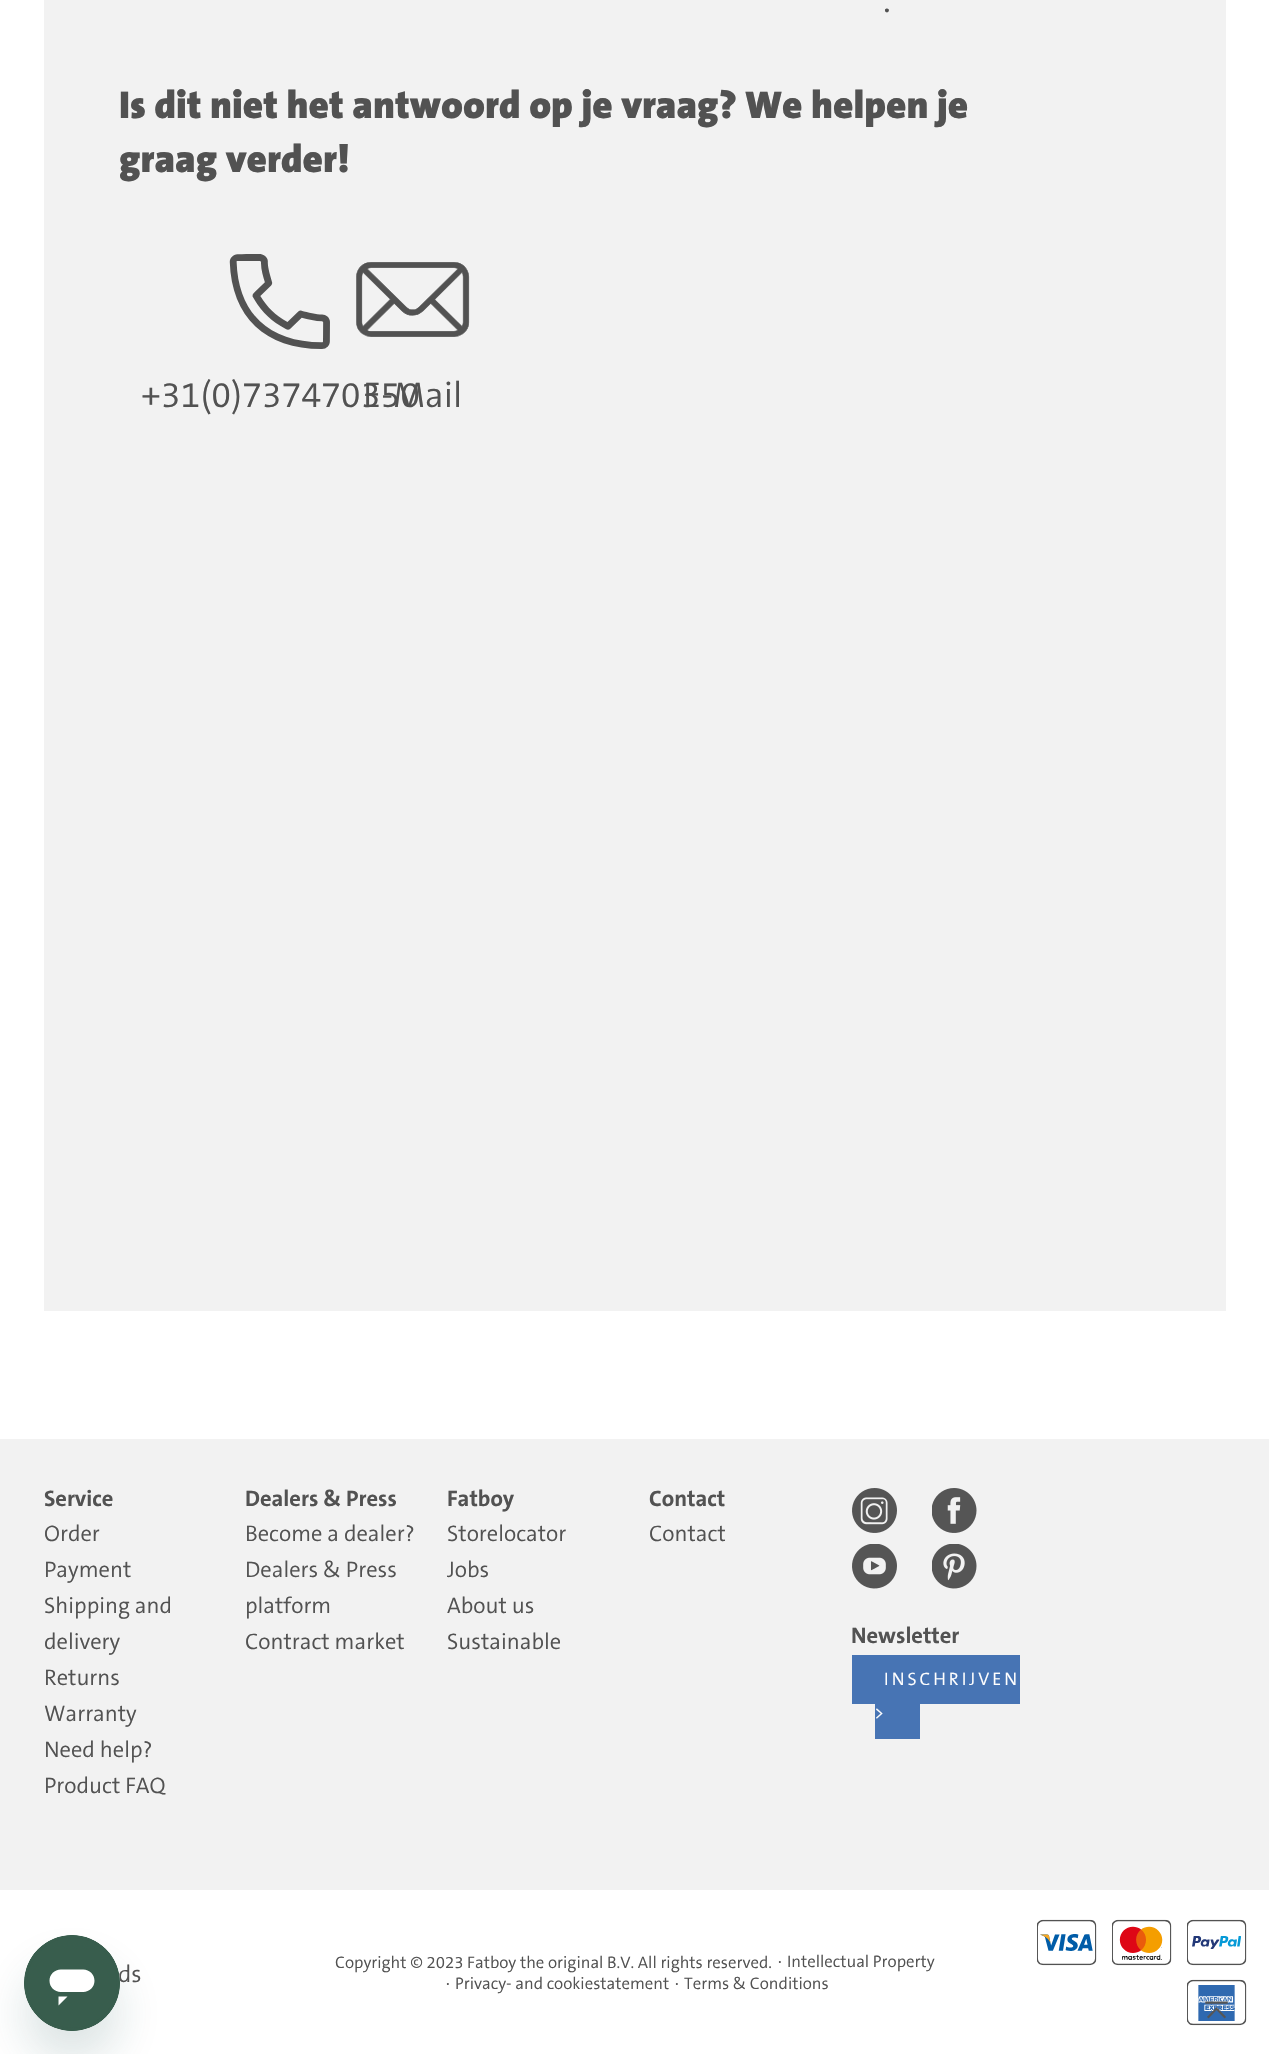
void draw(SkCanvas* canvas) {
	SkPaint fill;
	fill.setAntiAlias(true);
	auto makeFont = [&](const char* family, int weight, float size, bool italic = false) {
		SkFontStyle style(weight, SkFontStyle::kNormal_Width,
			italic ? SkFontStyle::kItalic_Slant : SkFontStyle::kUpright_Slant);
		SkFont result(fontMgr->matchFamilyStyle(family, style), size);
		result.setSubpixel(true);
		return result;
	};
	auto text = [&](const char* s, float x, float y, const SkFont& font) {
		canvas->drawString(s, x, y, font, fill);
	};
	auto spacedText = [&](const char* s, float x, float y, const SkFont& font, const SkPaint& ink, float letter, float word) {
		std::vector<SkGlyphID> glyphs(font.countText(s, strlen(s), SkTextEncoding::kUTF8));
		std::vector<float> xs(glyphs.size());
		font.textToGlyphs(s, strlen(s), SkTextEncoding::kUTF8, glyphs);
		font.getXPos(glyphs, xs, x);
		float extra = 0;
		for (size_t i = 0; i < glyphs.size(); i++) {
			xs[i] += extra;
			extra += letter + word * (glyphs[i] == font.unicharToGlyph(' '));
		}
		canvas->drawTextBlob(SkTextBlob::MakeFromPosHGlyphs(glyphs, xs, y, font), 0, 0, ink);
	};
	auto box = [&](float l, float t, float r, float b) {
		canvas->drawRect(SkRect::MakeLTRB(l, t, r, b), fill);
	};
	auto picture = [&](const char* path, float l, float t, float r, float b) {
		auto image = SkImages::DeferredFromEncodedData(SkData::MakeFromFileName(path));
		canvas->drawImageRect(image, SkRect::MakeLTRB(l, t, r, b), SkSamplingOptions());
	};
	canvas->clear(0xFFFFFFFF);
	fill.setColor(0xFFF2F2F2);
	box(44, 0, 1226, 1311);
	picture("image0.png", 229, 254, 330, 349);
	picture("image1.png", 356, 262, 470, 337);
	box(0, 1439, 1269, 1890);
	picture("image2.png", 852, 1488, 897, 1533);
	picture("image3.png", 932, 1488, 977, 1533);
	picture("image4.png", 852, 1544, 897, 1589);
	picture("image5.png", 932, 1544, 977, 1589);
	fill.setColor(0xFF4774B4);
	box(852, 1655, 1020, 1704);
	box(875, 1704, 920, 1739);
	fill.setColor(0x2617494D);
	fill.setMaskFilter(SkMaskFilter::MakeBlur(kNormal_SkBlurStyle, 22.5f));
	canvas->drawRoundRect(SkRect::MakeLTRB(24, 1965, 120, 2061), 48, 48, fill);
	fill.setMaskFilter(nullptr);
	picture("image7.png", 1037, 1919, 1097, 1966);
	picture("image8.png", 1112, 1919, 1172, 1966);
	picture("image9.png", 1187, 1919, 1247, 1966);
	picture("image10.png", 1187, 1979, 1247, 2026);
	picture("image11.png", 1205, 2001, 1228, 2019);
	auto font1 = makeFont("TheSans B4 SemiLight", 300, 36);
	fill.setColor(0xFF525252);
	text(".", 883, 12, font1);
	auto font2 = makeFont("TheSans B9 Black", 900, 39);
	text("Is dit niet het antwoord op je vraag? We helpen je", 119, 118, font2);
	text("graag verder!", 119, 172, font2);
	text("+31(0)737470350", 141, 407, font1);
	text("E-Mail", 363, 407, font1);
	auto font3 = makeFont("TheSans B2", 700, 22.5f);
	text("Service", 44, 1506, font3);
	auto font4 = makeFont("TheSans B2", 300, 22.5f);
	text("Order", 44, 1541, font4);
	text("Payment", 44, 1577, font4);
	text("Shipping and", 44, 1613, font4);
	text("delivery", 44, 1649, font4);
	text("Returns", 44, 1685, font4);
	text("Warranty", 44, 1721, font4);
	text("Need help?", 44, 1757, font4);
	text("Product FAQ", 44, 1793, font4);
	text("Dealers & Press", 245, 1506, font3);
	text("Become a dealer?", 245, 1541, font4);
	text("Dealers & Press", 245, 1577, font4);
	text("platform", 245, 1613, font4);
	text("Contract market", 245, 1649, font4);
	text("Fatboy", 447, 1506, font3);
	text("Storelocator", 447, 1541, font4);
	text("Jobs", 447, 1577, font4);
	text("About us", 447, 1613, font4);
	text("Sustainable", 447, 1649, font4);
	text("Contact", 649, 1506, font3);
	text("Contact", 649, 1541, font4);
	text("Newsletter", 851, 1643, font3);
	auto font5 = makeFont("TheSans B4 SemiLight", 300, 18);
	fill.setColor(0xFFFFFFFF);
	spacedText("INSCHRIJVEN", 884, 1685, font5, fill, 3, 0);
	spacedText(">", 874, 1719, font5, fill, 3, 0);
	auto font6 = makeFont("TheSans B4 SemiLight", 300, 24);
	fill.setColor(0xFF525252);
	text("ds", 118, 1982, font6);
	picture("image6.png", 24, 1935, 120, 2031);
	auto font7 = makeFont("TheSans B4 SemiLight", 300, 16.8f);
	text("Copyright © 2023 Fatboy the original B.V. All rights reserved.", 335, 1968, font7);
	text("·", 778, 1967, font7);
	text("Intellectual Property", 787, 1967, font7);
	text("·", 446, 1989, font7);
	text("Privacy- and cookiestatement", 455, 1989, font7);
	text("·", 675, 1989, font7);
	text("Terms & Conditions", 684, 1989, font7);
}
